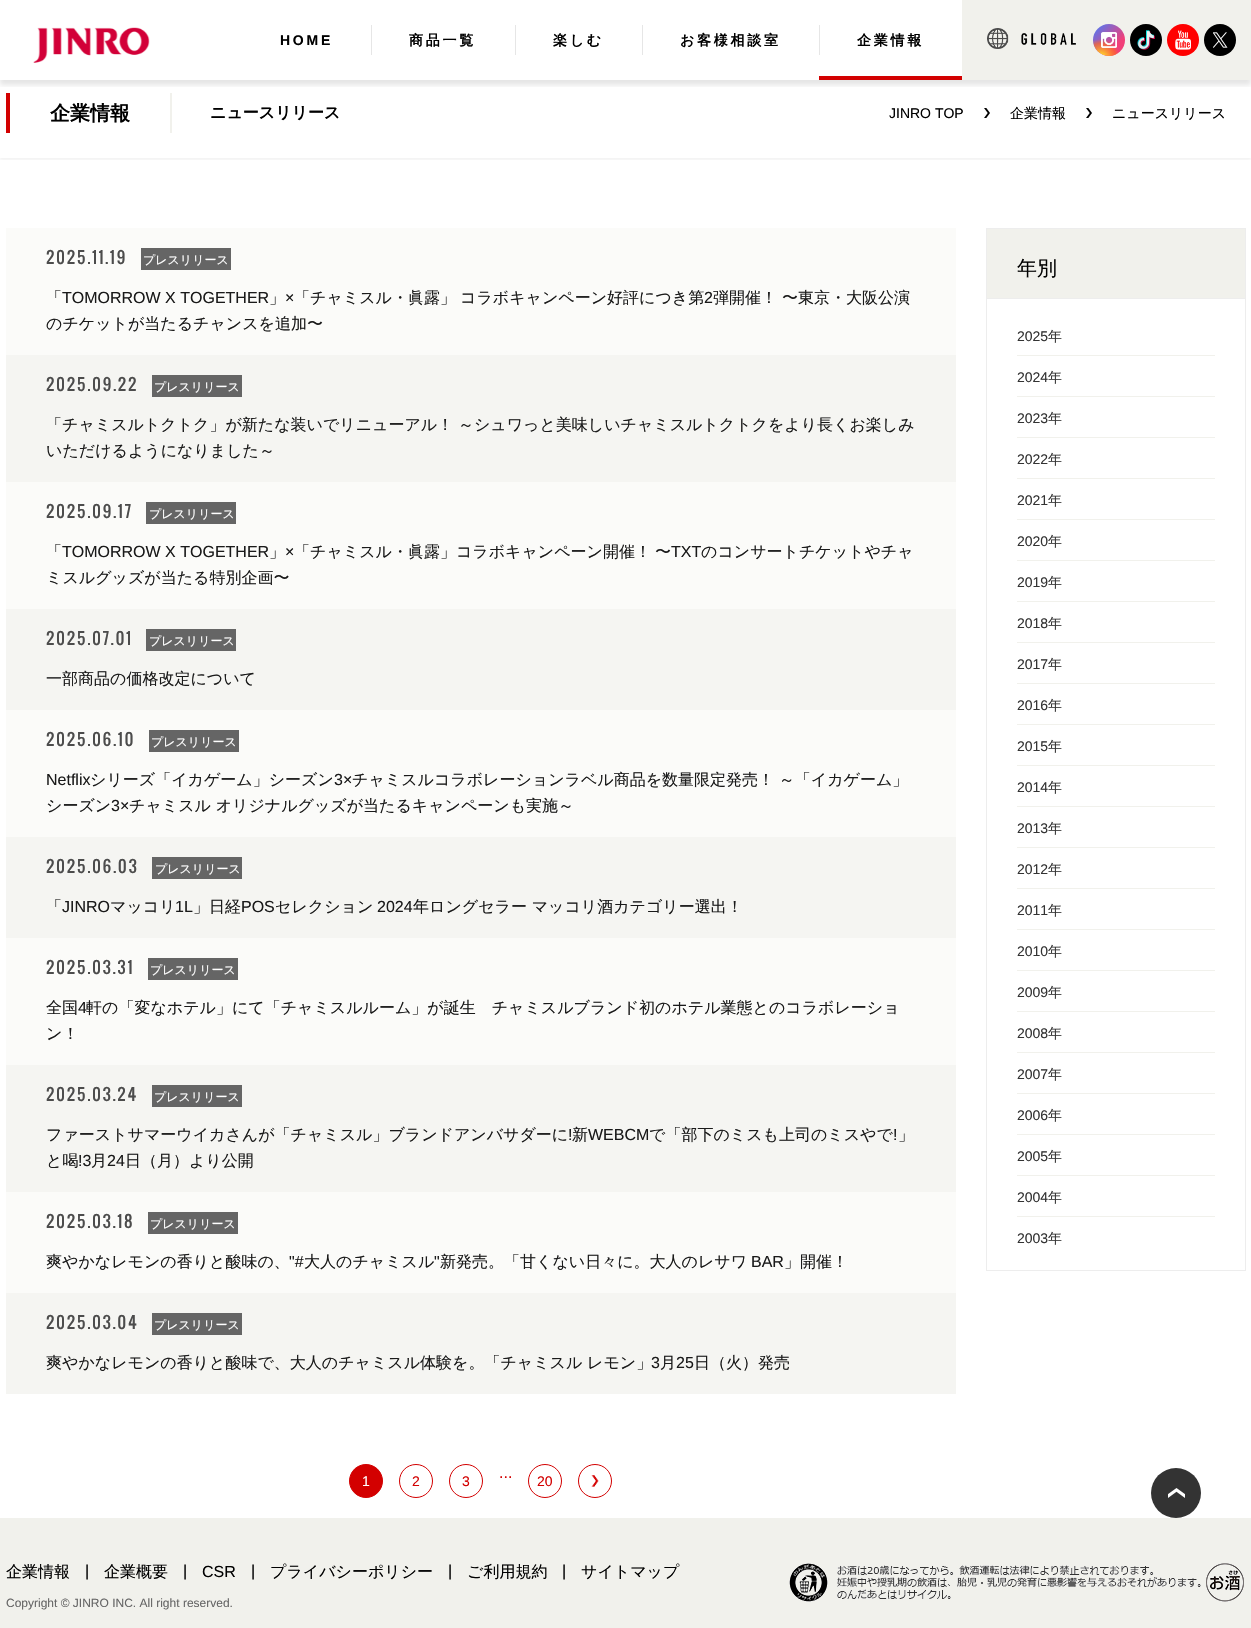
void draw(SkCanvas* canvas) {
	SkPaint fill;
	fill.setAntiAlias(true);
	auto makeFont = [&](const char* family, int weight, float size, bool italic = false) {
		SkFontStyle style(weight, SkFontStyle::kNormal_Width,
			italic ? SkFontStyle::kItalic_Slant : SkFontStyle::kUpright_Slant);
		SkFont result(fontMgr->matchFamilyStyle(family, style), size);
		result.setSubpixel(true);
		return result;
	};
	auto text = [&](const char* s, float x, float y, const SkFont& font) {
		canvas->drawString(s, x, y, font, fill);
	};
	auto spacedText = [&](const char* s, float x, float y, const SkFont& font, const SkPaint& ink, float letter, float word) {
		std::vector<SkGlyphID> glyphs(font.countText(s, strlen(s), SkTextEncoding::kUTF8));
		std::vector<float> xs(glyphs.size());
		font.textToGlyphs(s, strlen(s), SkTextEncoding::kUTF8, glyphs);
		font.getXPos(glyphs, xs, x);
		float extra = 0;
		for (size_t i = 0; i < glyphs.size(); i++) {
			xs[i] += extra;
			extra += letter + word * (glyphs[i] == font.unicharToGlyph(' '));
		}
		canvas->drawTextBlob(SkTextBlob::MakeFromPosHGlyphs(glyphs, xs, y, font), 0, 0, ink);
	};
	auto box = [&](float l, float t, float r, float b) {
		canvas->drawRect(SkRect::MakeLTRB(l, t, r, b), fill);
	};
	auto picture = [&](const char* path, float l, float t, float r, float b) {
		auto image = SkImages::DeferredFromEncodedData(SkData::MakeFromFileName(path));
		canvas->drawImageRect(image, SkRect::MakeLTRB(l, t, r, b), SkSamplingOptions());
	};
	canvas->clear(0xFFFFFFFF);
	canvas->save();
	canvas->clipRect(SkRect::MakeLTRB(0, 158, 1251, 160));
	fill.setColor(0x0D000000);
	fill.setMaskFilter(SkMaskFilter::MakeBlur(kNormal_SkBlurStyle, 1.5f));
	canvas->drawRect(SkRect::MakeLTRB(0, 70, 1251, 160), fill);
	fill.setMaskFilter(nullptr);
	canvas->restore();
	fill.setColor(0xFFD30000);
	box(6, 93, 10, 133);
	fill.setColor(0xFFF1F1EC);
	box(170, 93, 172, 133);
	canvas->save();
	canvas->clipRect(SkRect::MakeLTRB(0, 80, 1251, 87));
	fill.setColor(0x1A000000);
	fill.setMaskFilter(SkMaskFilter::MakeBlur(kNormal_SkBlurStyle, 2.5f));
	canvas->drawRect(SkRect::MakeLTRB(0, 5, 1251, 85), fill);
	fill.setMaskFilter(nullptr);
	canvas->restore();
	picture("image0.png", 33, 27, 150, 63);
	fill.setColor(0xFFF1F1EC);
	box(962, 0, 1251, 80);
	fill.setColor(0xFFE6E6E6);
	box(371, 25, 372, 55);
	box(515, 25, 516, 55);
	box(642, 25, 643, 55);
	box(819, 25, 820, 55);
	fill.setColor(0xFFD30000);
	box(819, 76, 962, 80);
	picture("image1.png", 987, 28, 1076, 49);
	{
		const SkColor colors[] = {0xFF427EFF, 0xFFF13F79};
		const float stops[] = {0, 0.7f};
		const SkPoint ends[] = {{1093, 24}, {1125, 56}};
		fill.setShader(SkGradientShader::MakeLinear(ends, colors, stops, 2, SkTileMode::kClamp));
		fill.setAlpha(255);
	}
	canvas->drawCircle(1109, 40, 16, fill);
	canvas->save();
	canvas->clipPath(SkPathBuilder().moveTo(1109, 24).cubicTo(1118, 24, 1125, 31, 1125, 40).cubicTo(1125, 49, 1118, 56, 1109, 56).cubicTo(1100, 56, 1093, 49, 1093, 40).cubicTo(1093, 31, 1100, 24, 1109, 24).close().detach(), true);
	{
		const SkColor colors[] = {0xFFFFDB2C, 0xA6FF6922, 0x00FF6922};
		const float stops[] = {0.1f, 0.55f, 0.7f};
		fill.setShader(SkGradientShader::MakeRadial({1101, 58}, 27, colors, stops, 3, SkTileMode::kClamp));
		fill.setAlpha(255);
	}
	canvas->drawPath(SkPathBuilder().moveTo(1093, 39).lineTo(1120, 39).lineTo(1120, 56).lineTo(1109, 56).cubicTo(1100, 56, 1093, 49, 1093, 40).close().detach(), fill);
	canvas->restore();
	picture("image2.png", 1101, 32, 1117, 48);
	fill.setShader(nullptr);
	fill.setColor(0xFF000000);
	canvas->drawCircle(1146, 40, 16, fill);
	picture("image3.png", 1137, 30, 1155, 50);
	fill.setColor(0xFFFF0000);
	canvas->drawCircle(1183, 40, 16, fill);
	picture("image4.png", 1175, 30, 1191, 50);
	fill.setColor(0xFF000000);
	canvas->drawCircle(1220, 40, 16, fill);
	picture("image5.png", 1213, 32, 1228, 48);
	picture("image6.png", 984, 108, 990, 118);
	picture("image6.png", 1086, 108, 1092, 118);
	fill.setColor(0xFFFBFBF9);
	box(6, 228, 956, 355);
	fill.setColor(0xFF656565);
	box(141, 248, 231, 270);
	fill.setColor(0xFFF5F5F2);
	box(6, 355, 956, 482);
	fill.setColor(0xFF656565);
	box(152, 375, 242, 397);
	fill.setColor(0xFFFBFBF9);
	box(6, 482, 956, 609);
	fill.setColor(0xFF656565);
	box(146, 502, 236, 524);
	fill.setColor(0xFFF5F5F2);
	box(6, 609, 956, 710);
	fill.setColor(0xFF656565);
	box(146, 629, 236, 651);
	fill.setColor(0xFFFBFBF9);
	box(6, 710, 956, 837);
	fill.setColor(0xFF656565);
	box(149, 730, 239, 752);
	fill.setColor(0xFFF5F5F2);
	box(6, 837, 956, 938);
	fill.setColor(0xFF656565);
	box(152, 857, 242, 879);
	fill.setColor(0xFFFBFBF9);
	box(6, 938, 956, 1065);
	fill.setColor(0xFF656565);
	box(148, 958, 238, 980);
	fill.setColor(0xFFF5F5F2);
	box(6, 1065, 956, 1192);
	fill.setColor(0xFF656565);
	box(152, 1085, 242, 1107);
	fill.setColor(0xFFFBFBF9);
	box(6, 1192, 956, 1293);
	fill.setColor(0xFF656565);
	box(148, 1212, 238, 1234);
	fill.setColor(0xFFF5F5F2);
	box(6, 1293, 956, 1394);
	fill.setColor(0xFF656565);
	box(152, 1313, 242, 1335);
	fill.setColor(0xFFD30000);
	canvas->drawCircle(366, 1481, 16.5f, fill);
	fill.setStyle(SkPaint::kStroke_Style);
	fill.setStrokeWidth(1);
	canvas->drawCircle(366, 1481, 16.5f, fill);
	canvas->drawCircle(416, 1481, 16.5f, fill);
	canvas->drawCircle(466, 1481, 16.5f, fill);
	canvas->drawCircle(545, 1481, 16.5f, fill);
	canvas->drawCircle(595, 1481, 16.5f, fill);
	picture("image7.png", 591, 1475, 599, 1487);
	fill.setStyle(SkPaint::kFill_Style);
	fill.setColor(0xFFF1F1EC);
	canvas->drawRect(SkRect::MakeLTRB(986.5f, 228.5f, 1245.5f, 298.5f), fill);
	fill.setStyle(SkPaint::kStroke_Style);
	fill.setColor(0xFFEDEDED);
	canvas->drawRect(SkRect::MakeLTRB(986.5f, 228.5f, 1245.5f, 298.5f), fill);
	fill.setStyle(SkPaint::kFill_Style);
	box(1245, 299, 1246, 1271);
	box(986, 1270, 1246, 1271);
	box(986, 299, 987, 1271);
	fill.setColor(0xFFF1F1EC);
	box(1017, 355, 1215, 356);
	box(1017, 396, 1215, 397);
	box(1017, 437, 1215, 438);
	box(1017, 478, 1215, 479);
	box(1017, 519, 1215, 520);
	box(1017, 560, 1215, 561);
	box(1017, 601, 1215, 602);
	box(1017, 642, 1215, 643);
	box(1017, 683, 1215, 684);
	box(1017, 724, 1215, 725);
	box(1017, 765, 1215, 766);
	box(1017, 806, 1215, 807);
	box(1017, 847, 1215, 848);
	box(1017, 888, 1215, 889);
	box(1017, 929, 1215, 930);
	box(1017, 970, 1215, 971);
	box(1017, 1011, 1215, 1012);
	box(1017, 1052, 1215, 1053);
	box(1017, 1093, 1215, 1094);
	box(1017, 1134, 1215, 1135);
	box(1017, 1175, 1215, 1176);
	box(1017, 1216, 1215, 1217);
	fill.setColor(0xFF333333);
	canvas->drawCircle(1176, 1493, 25, fill);
	picture("image8.png", 1168, 1488, 1185, 1498);
	fill.setColor(0xFFF1F1EC);
	box(0, 1518, 1251, 1628);
	picture("image9.png", 789, 1563, 1244, 1602);
	auto font1 = makeFont("Liberation Sans", 700, 14);
	fill.setColor(0xFF000000);
	spacedText("HOME", 280, 45, font1, fill, 2.75f, 0);
	auto font2 = makeFont("WenQuanYi Zen Hei", 700, 14);
	spacedText("商品一覧", 409, 45, font2, fill, 2.75f, 0);
	spacedText("楽しむ", 553, 45, font2, fill, 2.75f, 0);
	spacedText("お客様相談室", 680, 45, font2, fill, 2.75f, 0);
	spacedText("企業情報", 857, 45, font2, fill, 2.75f, 0);
	auto font3 = makeFont("WenQuanYi Zen Hei", 700, 20);
	text("企業情報", 50, 120, font3);
	auto font4 = makeFont("WenQuanYi Zen Hei", 700, 16);
	text("ニュースリリース", 210, 118, font4);
	auto font5 = makeFont("Liberation Sans", 400, 14);
	text("JINRO TOP", 889, 118, font5);
	auto font6 = makeFont("WenQuanYi Zen Hei", 500, 14);
	text("企業情報", 1010, 118, font6);
	text("ニュースリリース", 1112, 118, font6);
	auto font7 = makeFont("Oswald", 400, 16);
	fill.setColor(0xFF4C4C4C);
	spacedText("2025.11.19", 46, 264, font7, fill, 1.6f, 0);
	auto font8 = makeFont("WenQuanYi Zen Hei", 500, 12);
	fill.setColor(0xFFFFFFFF);
	text("プレスリリース", 143, 264, font8);
	auto font9 = makeFont("WenQuanYi Zen Hei", 500, 16);
	fill.setColor(0xFF1A1A1A);
	text("「", 46, 303, font9);
	auto font10 = makeFont("Liberation Sans", 400, 16);
	text("TOMORROW X TOGETHER", 62, 303, font10);
	text("」", 269, 303, font9);
	text("×", 285, 303, font10);
	text("「チャミスル・眞露」", 294, 303, font9);
	text("コラボキャンペーン好評につき第", 460, 303, font9);
	text("2", 704, 303, font10);
	text("弾開催！", 713, 303, font9);
	text("〜東京・大阪公演", 782, 303, font9);
	text("のチケットが当たるチャンスを追加〜", 46, 329, font9);
	fill.setColor(0xFF4C4C4C);
	spacedText("2025.09.22", 46, 391, font7, fill, 1.6f, 0);
	fill.setColor(0xFFFFFFFF);
	text("プレスリリース", 154, 391, font8);
	fill.setColor(0xFF1A1A1A);
	text("「チャミスルトクトク」が新たな装いでリニューアル！ ～シュワっと美味しいチャミスルトクトクをより長くお楽しみ", 46, 430, font9);
	text("いただけるようになりました～", 46, 456, font9);
	fill.setColor(0xFF4C4C4C);
	spacedText("2025.09.17", 46, 518, font7, fill, 1.6f, 0);
	fill.setColor(0xFFFFFFFF);
	text("プレスリリース", 149, 518, font8);
	fill.setColor(0xFF1A1A1A);
	text("「", 46, 557, font9);
	text("TOMORROW X TOGETHER", 62, 557, font10);
	text("」", 269, 557, font9);
	text("×", 285, 557, font10);
	text("「チャミスル・眞露」コラボキャンペーン開催！", 294, 557, font9);
	text("〜", 655, 557, font9);
	text("TXT", 671, 557, font10);
	text("のコンサートチケットやチャ", 701, 557, font9);
	text("ミスルグッズが当たる特別企画〜", 46, 583, font9);
	fill.setColor(0xFF4C4C4C);
	spacedText("2025.07.01", 46, 645, font7, fill, 1.6f, 0);
	fill.setColor(0xFFFFFFFF);
	text("プレスリリース", 149, 645, font8);
	fill.setColor(0xFF1A1A1A);
	text("一部商品の価格改定について", 46, 684, font9);
	fill.setColor(0xFF4C4C4C);
	spacedText("2025.06.10", 46, 746, font7, fill, 1.6f, 0);
	fill.setColor(0xFFFFFFFF);
	text("プレスリリース", 151, 746, font8);
	fill.setColor(0xFF1A1A1A);
	text("Netflix", 46, 785, font10);
	text("シリーズ「イカゲーム」シーズン", 90, 785, font9);
	text("3×", 334, 785, font10);
	text("チャミスルコラボレーションラベル商品を数量限定発売！ ～「イカゲーム」", 352, 785, font9);
	text("シーズン", 46, 811, font9);
	text("3×", 111, 811, font10);
	text("チャミスル オリジナルグッズが当たるキャンペーンも実施～", 129, 811, font9);
	fill.setColor(0xFF4C4C4C);
	spacedText("2025.06.03", 46, 873, font7, fill, 1.6f, 0);
	fill.setColor(0xFFFFFFFF);
	text("プレスリリース", 155, 873, font8);
	fill.setColor(0xFF1A1A1A);
	text("「", 46, 912, font9);
	text("JINRO", 62, 912, font10);
	text("マッコリ", 110, 912, font9);
	text("1L", 175, 912, font10);
	text("」日経", 193, 912, font9);
	text("POS", 241, 912, font10);
	text("セレクション", 275, 912, font9);
	text("2024", 377, 912, font10);
	text("年ロングセラー マッコリ酒カテゴリー選出！", 413, 912, font9);
	fill.setColor(0xFF4C4C4C);
	spacedText("2025.03.31", 46, 974, font7, fill, 1.6f, 0);
	fill.setColor(0xFFFFFFFF);
	text("プレスリリース", 150, 974, font8);
	fill.setColor(0xFF1A1A1A);
	text("全国", 46, 1013, font9);
	text("4", 78, 1013, font10);
	text("軒の「変なホテル」にて「チャミスルルーム」が誕生　チャミスルブランド初のホテル業態とのコラボレーショ", 86, 1013, font9);
	text("ン！", 46, 1039, font9);
	fill.setColor(0xFF4C4C4C);
	spacedText("2025.03.24", 46, 1101, font7, fill, 1.6f, 0);
	fill.setColor(0xFFFFFFFF);
	text("プレスリリース", 154, 1101, font8);
	fill.setColor(0xFF1A1A1A);
	text("ファーストサマーウイカさんが「チャミスル」ブランドアンバサダーに", 46, 1140, font9);
	text("!", 568, 1140, font10);
	text("新", 572, 1140, font9);
	text("WEBCM", 588, 1140, font10);
	text("で「部下のミスも上司のミスやで", 649, 1140, font9);
	text("!", 893, 1140, font10);
	text("」", 898, 1140, font9);
	text("と喝", 46, 1166, font9);
	text("!3", 78, 1166, font10);
	text("月", 91, 1166, font9);
	text("24", 107, 1166, font10);
	text("日（月）より公開", 125, 1166, font9);
	fill.setColor(0xFF4C4C4C);
	spacedText("2025.03.18", 46, 1228, font7, fill, 1.6f, 0);
	fill.setColor(0xFFFFFFFF);
	text("プレスリリース", 150, 1228, font8);
	fill.setColor(0xFF1A1A1A);
	text("爽やかなレモンの香りと酸味の、", 46, 1267, font9);
	text("\"#", 289, 1267, font10);
	text("大人のチャミスル", 304, 1267, font9);
	text("\"", 434, 1267, font10);
	text("新発売。「甘くない日々に。大人のレサワ", 440, 1267, font9);
	text("BAR", 751, 1267, font10);
	text("」開催！", 784, 1267, font9);
	fill.setColor(0xFF4C4C4C);
	spacedText("2025.03.04", 46, 1329, font7, fill, 1.6f, 0);
	fill.setColor(0xFFFFFFFF);
	text("プレスリリース", 154, 1329, font8);
	fill.setColor(0xFF1A1A1A);
	text("爽やかなレモンの香りと酸味で、大人のチャミスル体験を。「チャミスル レモン」", 46, 1368, font9);
	text("3", 651, 1368, font10);
	text("月", 660, 1368, font9);
	text("25", 676, 1368, font10);
	text("日（火）発売", 694, 1368, font9);
	fill.setColor(0xFFFFFFFF);
	text("1", 362, 1486, font5);
	fill.setColor(0xFFD30000);
	text("2", 412, 1486, font5);
	text("3", 462, 1486, font5);
	text("...", 499, 1478, font10);
	text("20", 537, 1486, font5);
	auto font11 = makeFont("WenQuanYi Zen Hei", 500, 20);
	fill.setColor(0xFF000000);
	text("年別", 1017, 275, font11);
	fill.setColor(0xFF333333);
	text("2025", 1017, 341, font5);
	text("年", 1048, 341, font6);
	text("2024", 1017, 382, font5);
	text("年", 1048, 382, font6);
	text("2023", 1017, 423, font5);
	text("年", 1048, 423, font6);
	text("2022", 1017, 464, font5);
	text("年", 1048, 464, font6);
	text("2021", 1017, 505, font5);
	text("年", 1048, 505, font6);
	text("2020", 1017, 546, font5);
	text("年", 1048, 546, font6);
	text("2019", 1017, 587, font5);
	text("年", 1048, 587, font6);
	text("2018", 1017, 628, font5);
	text("年", 1048, 628, font6);
	text("2017", 1017, 669, font5);
	text("年", 1048, 669, font6);
	text("2016", 1017, 710, font5);
	text("年", 1048, 710, font6);
	text("2015", 1017, 751, font5);
	text("年", 1048, 751, font6);
	text("2014", 1017, 792, font5);
	text("年", 1048, 792, font6);
	text("2013", 1017, 833, font5);
	text("年", 1048, 833, font6);
	text("2012", 1017, 874, font5);
	text("年", 1048, 874, font6);
	text("2011", 1017, 915, font5);
	text("年", 1048, 915, font6);
	text("2010", 1017, 956, font5);
	text("年", 1048, 956, font6);
	text("2009", 1017, 997, font5);
	text("年", 1048, 997, font6);
	text("2008", 1017, 1038, font5);
	text("年", 1048, 1038, font6);
	text("2007", 1017, 1079, font5);
	text("年", 1048, 1079, font6);
	text("2006", 1017, 1120, font5);
	text("年", 1048, 1120, font6);
	text("2005", 1017, 1161, font5);
	text("年", 1048, 1161, font6);
	text("2004", 1017, 1202, font5);
	text("年", 1048, 1202, font6);
	text("2003", 1017, 1243, font5);
	text("年", 1048, 1243, font6);
	fill.setColor(0xFF000000);
	text("企業情報", 6, 1577, font9);
	text("|", 85, 1576, font10);
	text("企業概要", 104, 1577, font9);
	text("|", 183, 1576, font10);
	text("CSR", 202, 1577, font10);
	text("|", 251, 1576, font10);
	text("プライバシーポリシー", 270, 1577, font9);
	text("|", 448, 1576, font10);
	text("ご利用規約", 467, 1577, font9);
	text("|", 562, 1576, font10);
	text("サイトマップ", 581, 1577, font9);
	auto font12 = makeFont("Liberation Sans", 400, 12);
	fill.setColor(0xFF666666);
	text("Copyright © JINRO INC. All right reserved.", 6, 1607, font12);
}
